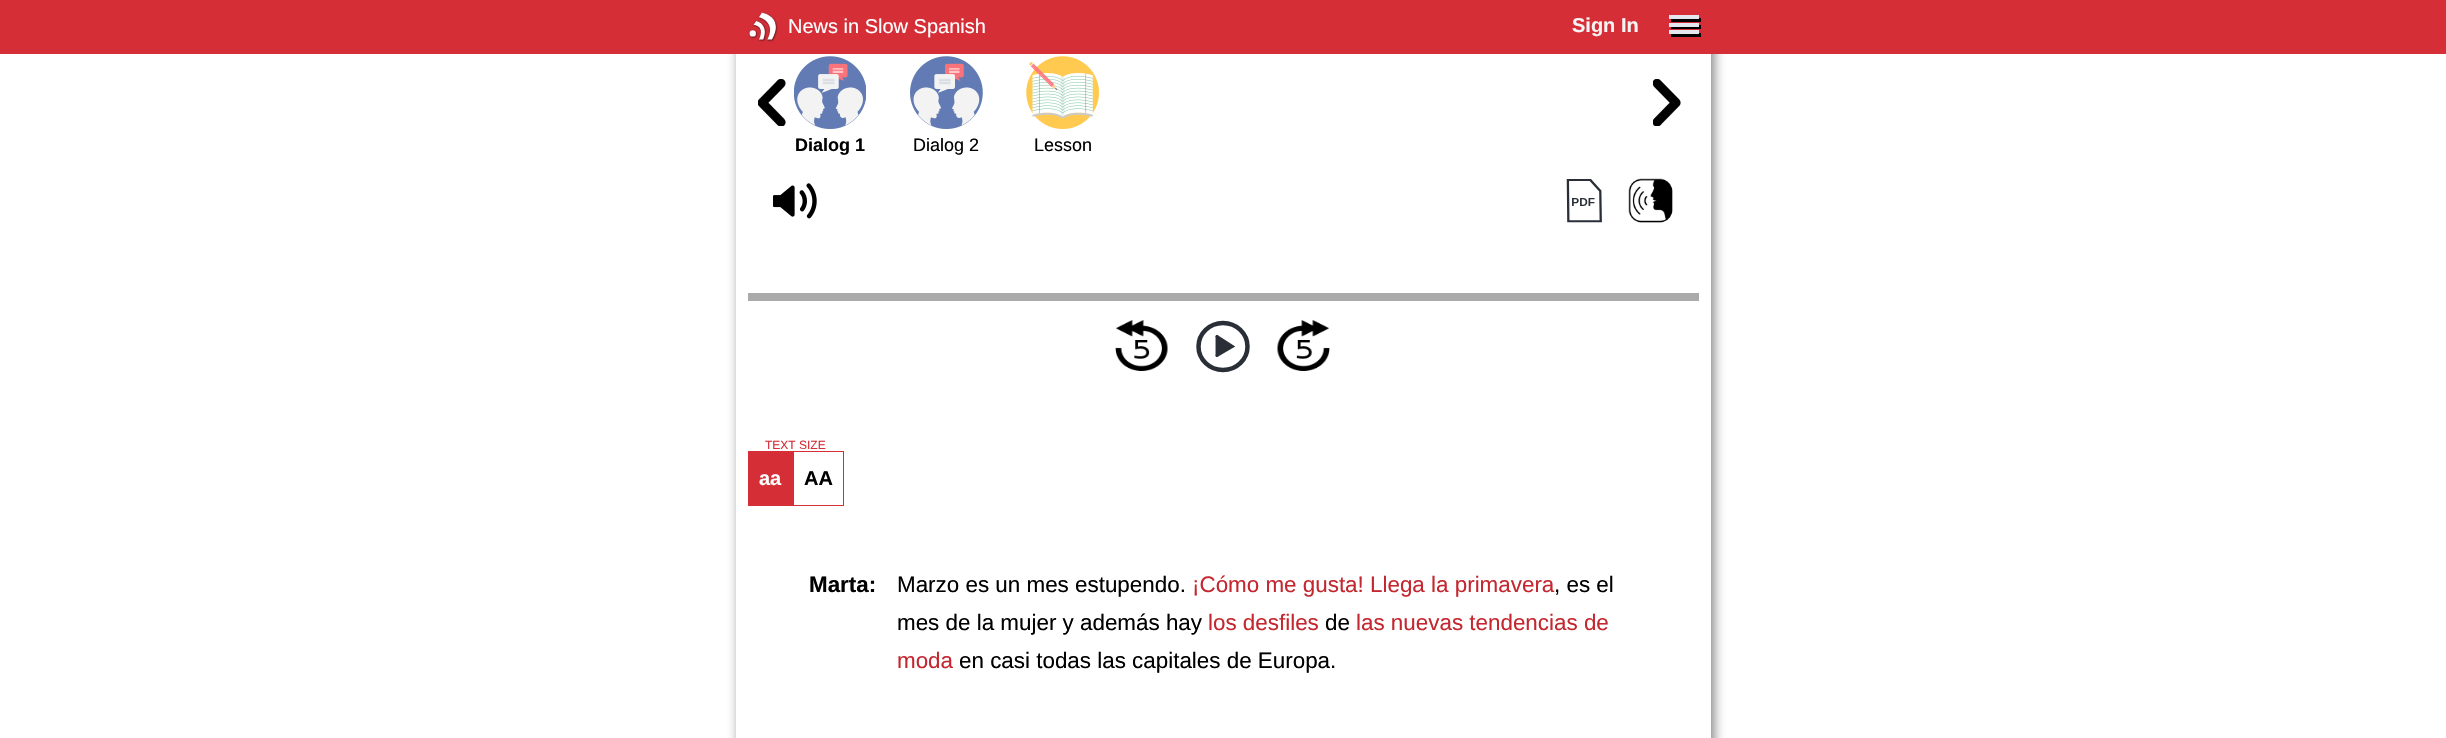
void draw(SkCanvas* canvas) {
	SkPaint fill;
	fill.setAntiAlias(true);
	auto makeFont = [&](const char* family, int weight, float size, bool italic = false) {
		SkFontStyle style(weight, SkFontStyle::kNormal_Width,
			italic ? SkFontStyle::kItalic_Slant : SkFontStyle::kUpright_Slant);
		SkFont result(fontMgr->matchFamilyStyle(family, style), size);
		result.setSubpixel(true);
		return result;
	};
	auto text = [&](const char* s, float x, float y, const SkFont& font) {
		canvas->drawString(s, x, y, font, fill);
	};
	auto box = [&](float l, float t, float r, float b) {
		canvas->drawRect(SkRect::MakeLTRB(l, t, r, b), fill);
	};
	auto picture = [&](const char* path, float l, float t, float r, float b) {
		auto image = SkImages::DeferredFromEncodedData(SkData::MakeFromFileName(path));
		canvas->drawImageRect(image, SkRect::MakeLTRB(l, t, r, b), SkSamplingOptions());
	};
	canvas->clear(0xFFFFFFFF);
	fill.setColor(0xFF808080);
	fill.setMaskFilter(SkMaskFilter::MakeBlur(kNormal_SkBlurStyle, 6));
	canvas->drawRoundRect(SkRect::MakeLTRB(739, -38, 1714, 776), 20, 20, fill);
	fill.setMaskFilter(nullptr);
	fill.setColor(0xFFD52E37);
	box(0, 0, 2446, 54);
	picture("image0.png", 748, 12, 778, 42);
	fill.setColor(0xFF000000);
	canvas->drawPath(SkPathBuilder().moveTo(1671, 19).lineTo(1671, 22).lineTo(1701, 22).lineTo(1701, 18).lineTo(1699, 18).lineTo(1699, 19).close().detach(), fill);
	fill.setColor(0xFFE4E7ED);
	box(1669, 15, 1699, 19);
	fill.setColor(0xFF000000);
	canvas->drawPath(SkPathBuilder().moveTo(1671, 26).lineTo(1671, 29).lineTo(1701, 29).lineTo(1701, 25).lineTo(1699, 25).lineTo(1699, 26).close().detach(), fill);
	fill.setColor(0xFFE4E7ED);
	box(1669, 23, 1699, 27);
	fill.setColor(0xFF000000);
	canvas->drawPath(SkPathBuilder().moveTo(1671, 34).lineTo(1671, 37).lineTo(1701, 37).lineTo(1701, 33).lineTo(1699, 33).lineTo(1699, 34).close().detach(), fill);
	fill.setColor(0xFFE4E7ED);
	box(1669, 30, 1699, 34);
	fill.setColor(0xFFFFFFFF);
	box(736, 54, 1711, 738);
	picture("image1.png", 758, 79, 786, 126);
	picture("image2.png", 1653, 79, 1681, 126);
	picture("image3.png", 794, 56, 866, 129);
	picture("image4.png", 910, 56, 983, 129);
	picture("image5.png", 1026, 56, 1100, 129);
	picture("image6.png", 773, 183, 817, 219);
	picture("image7.png", 1566, 179, 1602, 223);
	picture("image8.png", 1628, 178, 1673, 223);
	fill.setColor(0xFFAAAAAA);
	box(748, 293, 1699, 301);
	picture("image9.png", 1115, 320, 1168, 371);
	fill.setStyle(SkPaint::kStroke_Style);
	fill.setStrokeWidth(4.5f);
	fill.setColor(0xFF292E37);
	canvas->drawOval(SkRect::MakeLTRB(1198.5f, 323, 1247.5f, 370), fill);
	fill.setStrokeWidth(2.9f);
	fill.setStrokeCap(SkPaint::kRound_Cap);
	canvas->drawPath(SkPathBuilder().moveTo(1217, 336.5f).lineTo(1217, 355.5f).detach(), fill);
	fill.setStyle(SkPaint::kFill_Style);
	canvas->drawPath(SkPathBuilder().moveTo(1217, 355.5f).lineTo(1232.5f, 346.5f).lineTo(1217, 336.5f).detach(), fill);
	fill.setStyle(SkPaint::kStroke_Style);
	canvas->drawPath(SkPathBuilder().moveTo(1217, 355.5f).lineTo(1232.5f, 346.5f).lineTo(1217, 336.5f).detach(), fill);
	picture("image10.png", 1277, 320, 1330, 371);
	fill.setStyle(SkPaint::kFill_Style);
	fill.setColor(0xFFD52E37);
	box(748, 451, 793, 506);
	fill.setStyle(SkPaint::kStroke_Style);
	fill.setStrokeWidth(1);
	fill.setStrokeCap(SkPaint::kButt_Cap);
	canvas->drawRect(SkRect::MakeLTRB(793.5f, 451.5f, 843.5f, 505.5f), fill);
	auto font1 = makeFont("Liberation Sans", 400, 20);
	fill.setStyle(SkPaint::kFill_Style);
	fill.setColor(0xFFFFFFFF);
	text("News in Slow Spanish", 788, 33, font1);
	auto font2 = makeFont("Liberation Sans", 700, 20);
	fill.setColor(0xFFF4F4F4);
	text("Sign In", 1572, 32, font2);
	auto font3 = makeFont("Liberation Sans", 700, 18);
	fill.setColor(0xFF000000);
	text("Dialog 1", 795, 151, font3);
	auto font4 = makeFont("Liberation Sans", 400, 18);
	text("Dialog 2", 913, 151, font4);
	text("Lesson", 1034, 151, font4);
	auto font5 = makeFont("Liberation Sans", 400, 12);
	fill.setColor(0xFFD52E37);
	text("TEXT SIZE", 765, 449, font5);
	fill.setColor(0xFFFFFFFF);
	text("aa", 759, 485, font2);
	fill.setColor(0xFF000000);
	text("AA", 804, 485, font2);
	auto font6 = makeFont("Liberation Sans", 700, 22.4f);
	text("Marta:", 809, 592, font6);
	auto font7 = makeFont("Liberation Sans", 400, 22.4f);
	text("Marzo es un mes estupendo.", 897, 592, font7);
	fill.setColor(0xFFC3272F);
	text("¡Cómo me gusta! Llega la primavera", 1192, 592, font7);
	fill.setColor(0xFF000000);
	text(", es el", 1554, 592, font7);
	text("mes de la mujer y además hay", 897, 630, font7);
	fill.setColor(0xFFC3272F);
	text("los desfiles", 1208, 630, font7);
	fill.setColor(0xFF000000);
	text("de", 1325, 630, font7);
	fill.setColor(0xFFC3272F);
	text("las nuevas tendencias de", 1356, 630, font7);
	text("moda", 897, 668, font7);
	fill.setColor(0xFF000000);
	text("en casi todas las capitales de Europa.", 959, 668, font7);
}
